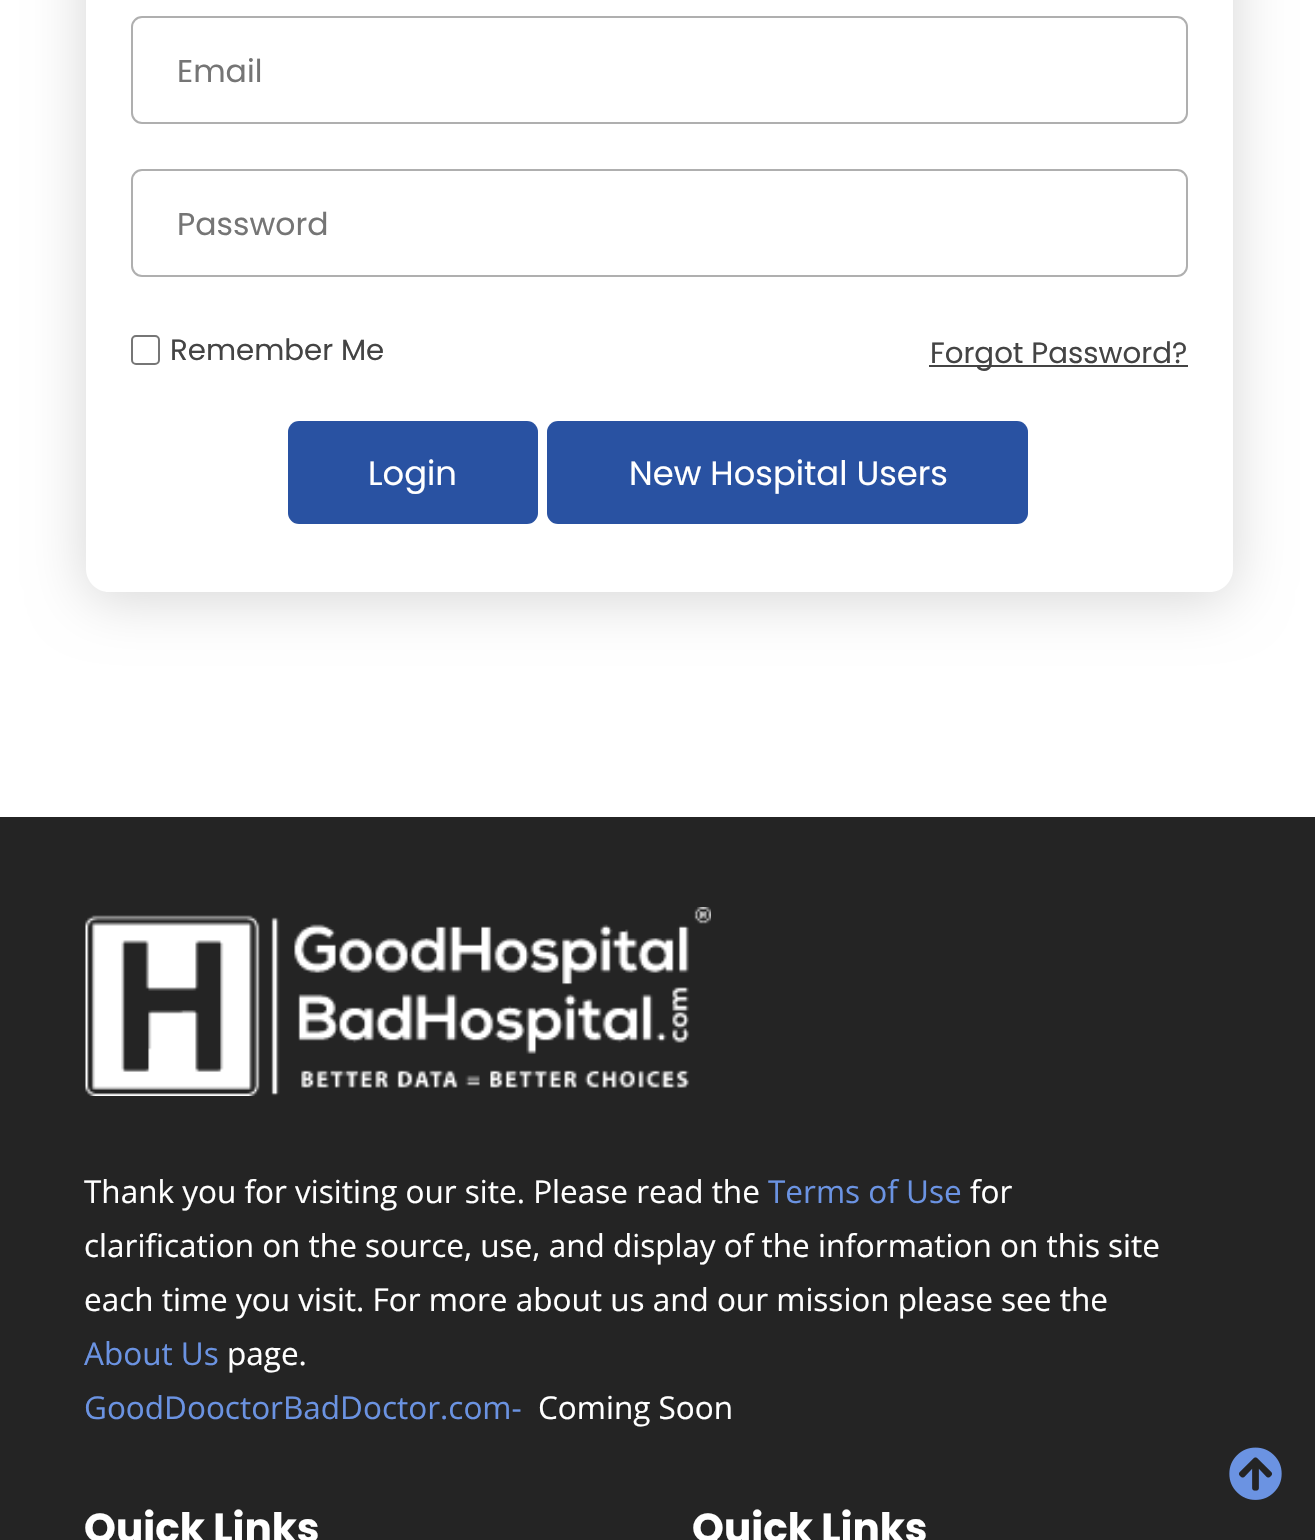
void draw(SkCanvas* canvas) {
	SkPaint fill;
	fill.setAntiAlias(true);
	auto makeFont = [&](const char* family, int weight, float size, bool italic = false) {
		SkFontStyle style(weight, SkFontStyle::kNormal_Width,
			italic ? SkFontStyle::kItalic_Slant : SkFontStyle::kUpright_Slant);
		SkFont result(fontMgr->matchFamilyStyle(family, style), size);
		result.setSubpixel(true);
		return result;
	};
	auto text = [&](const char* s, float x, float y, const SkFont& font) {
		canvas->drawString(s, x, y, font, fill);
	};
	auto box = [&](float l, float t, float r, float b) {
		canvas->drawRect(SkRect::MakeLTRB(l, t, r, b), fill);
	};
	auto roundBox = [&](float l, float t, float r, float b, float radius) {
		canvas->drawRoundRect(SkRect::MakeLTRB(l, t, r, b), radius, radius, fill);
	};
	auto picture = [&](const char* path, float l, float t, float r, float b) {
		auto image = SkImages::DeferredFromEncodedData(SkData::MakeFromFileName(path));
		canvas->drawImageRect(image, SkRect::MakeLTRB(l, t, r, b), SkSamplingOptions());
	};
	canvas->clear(0xFFFFFFFF);
	canvas->save();
	canvas->clipPath(SkPathBuilder(SkPathFillType::kEvenOdd).moveTo(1, 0).lineTo(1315, 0).lineTo(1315, 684).lineTo(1, 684).close().moveTo(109, -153).lineTo(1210, -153).cubicTo(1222.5f, -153, 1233, -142.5f, 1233, -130).lineTo(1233, 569).cubicTo(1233, 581.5f, 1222.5f, 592, 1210, 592).lineTo(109, 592).cubicTo(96.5f, 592, 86, 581.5f, 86, 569).lineTo(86, -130).cubicTo(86, -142.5f, 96.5f, -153, 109, -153).close().detach(), true);
	fill.setColor(0x29000000);
	fill.setMaskFilter(SkMaskFilter::MakeBlur(kNormal_SkBlurStyle, 28));
	canvas->drawRoundRect(SkRect::MakeLTRB(86, -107, 1233, 599), 23, 23, fill);
	fill.setMaskFilter(nullptr);
	canvas->restore();
	fill.setStyle(SkPaint::kStroke_Style);
	fill.setStrokeWidth(2);
	fill.setColor(0xFFAFAFAF);
	canvas->drawRoundRect(SkRect::MakeLTRB(132, 17, 1187, 123), 10, 10, fill);
	canvas->drawRoundRect(SkRect::MakeLTRB(132, 170, 1187, 276), 10, 10, fill);
	fill.setColor(0xFF767676);
	canvas->drawRoundRect(SkRect::MakeLTRB(132, 336, 159, 364), 4, 4, fill);
	fill.setStyle(SkPaint::kFill_Style);
	fill.setColor(0xFF444444);
	box(929, 365, 1188, 367);
	fill.setColor(0xFF2952A2);
	roundBox(288, 421, 538, 524, 11);
	roundBox(547, 421, 1028, 524, 11);
	fill.setColor(0xFF242424);
	box(0, 817, 1315, 1540);
	picture("image0.png", 85, 907, 711, 1096);
	picture("image1.png", 1229, 1447, 1282, 1500);
	auto font1 = makeFont("Poppins", 400, 31.5f);
	fill.setColor(0xFF757575);
	text("Email", 177, 82, font1);
	text("Password", 177, 235, font1);
	auto font2 = makeFont("Poppins", 400, 29.25f);
	fill.setColor(0xFF444444);
	text("Remember Me", 170, 360, font2);
	text("Forgot Password?", 930, 363, font2);
	auto font3 = makeFont("Poppins", 400, 33.75f);
	fill.setColor(0xFFFFFFFF);
	text("Login", 368, 485, font3);
	text("New Hospital Users", 629, 485, font3);
	auto font4 = makeFont("Open Sans", 400, 31.5f);
	text("Thank you for visiting our site. Please read the", 84, 1203, font4);
	fill.setColor(0xFF6B93E2);
	text("Terms of Use", 768, 1203, font4);
	fill.setColor(0xFFFFFFFF);
	text("for", 970, 1203, font4);
	text("clarification on the source, use, and display of the information on this site", 84, 1257, font4);
	text("each time you visit. For more about us and our mission please see the", 84, 1311, font4);
	fill.setColor(0xFF6B93E2);
	text("About Us", 84, 1365, font4);
	fill.setColor(0xFFFFFFFF);
	text("page.", 227, 1365, font4);
	fill.setColor(0xFF6B93E2);
	text("GoodDooctorBadDoctor.com-", 84, 1419, font4);
	fill.setColor(0xFFFFFFFF);
	text("Coming Soon", 538, 1419, font4);
	auto font5 = makeFont("Poppins", 700, 40.5f);
	text("Quick Links", 84, 1542, font5);
	text("Quick Links", 692, 1542, font5);
}
